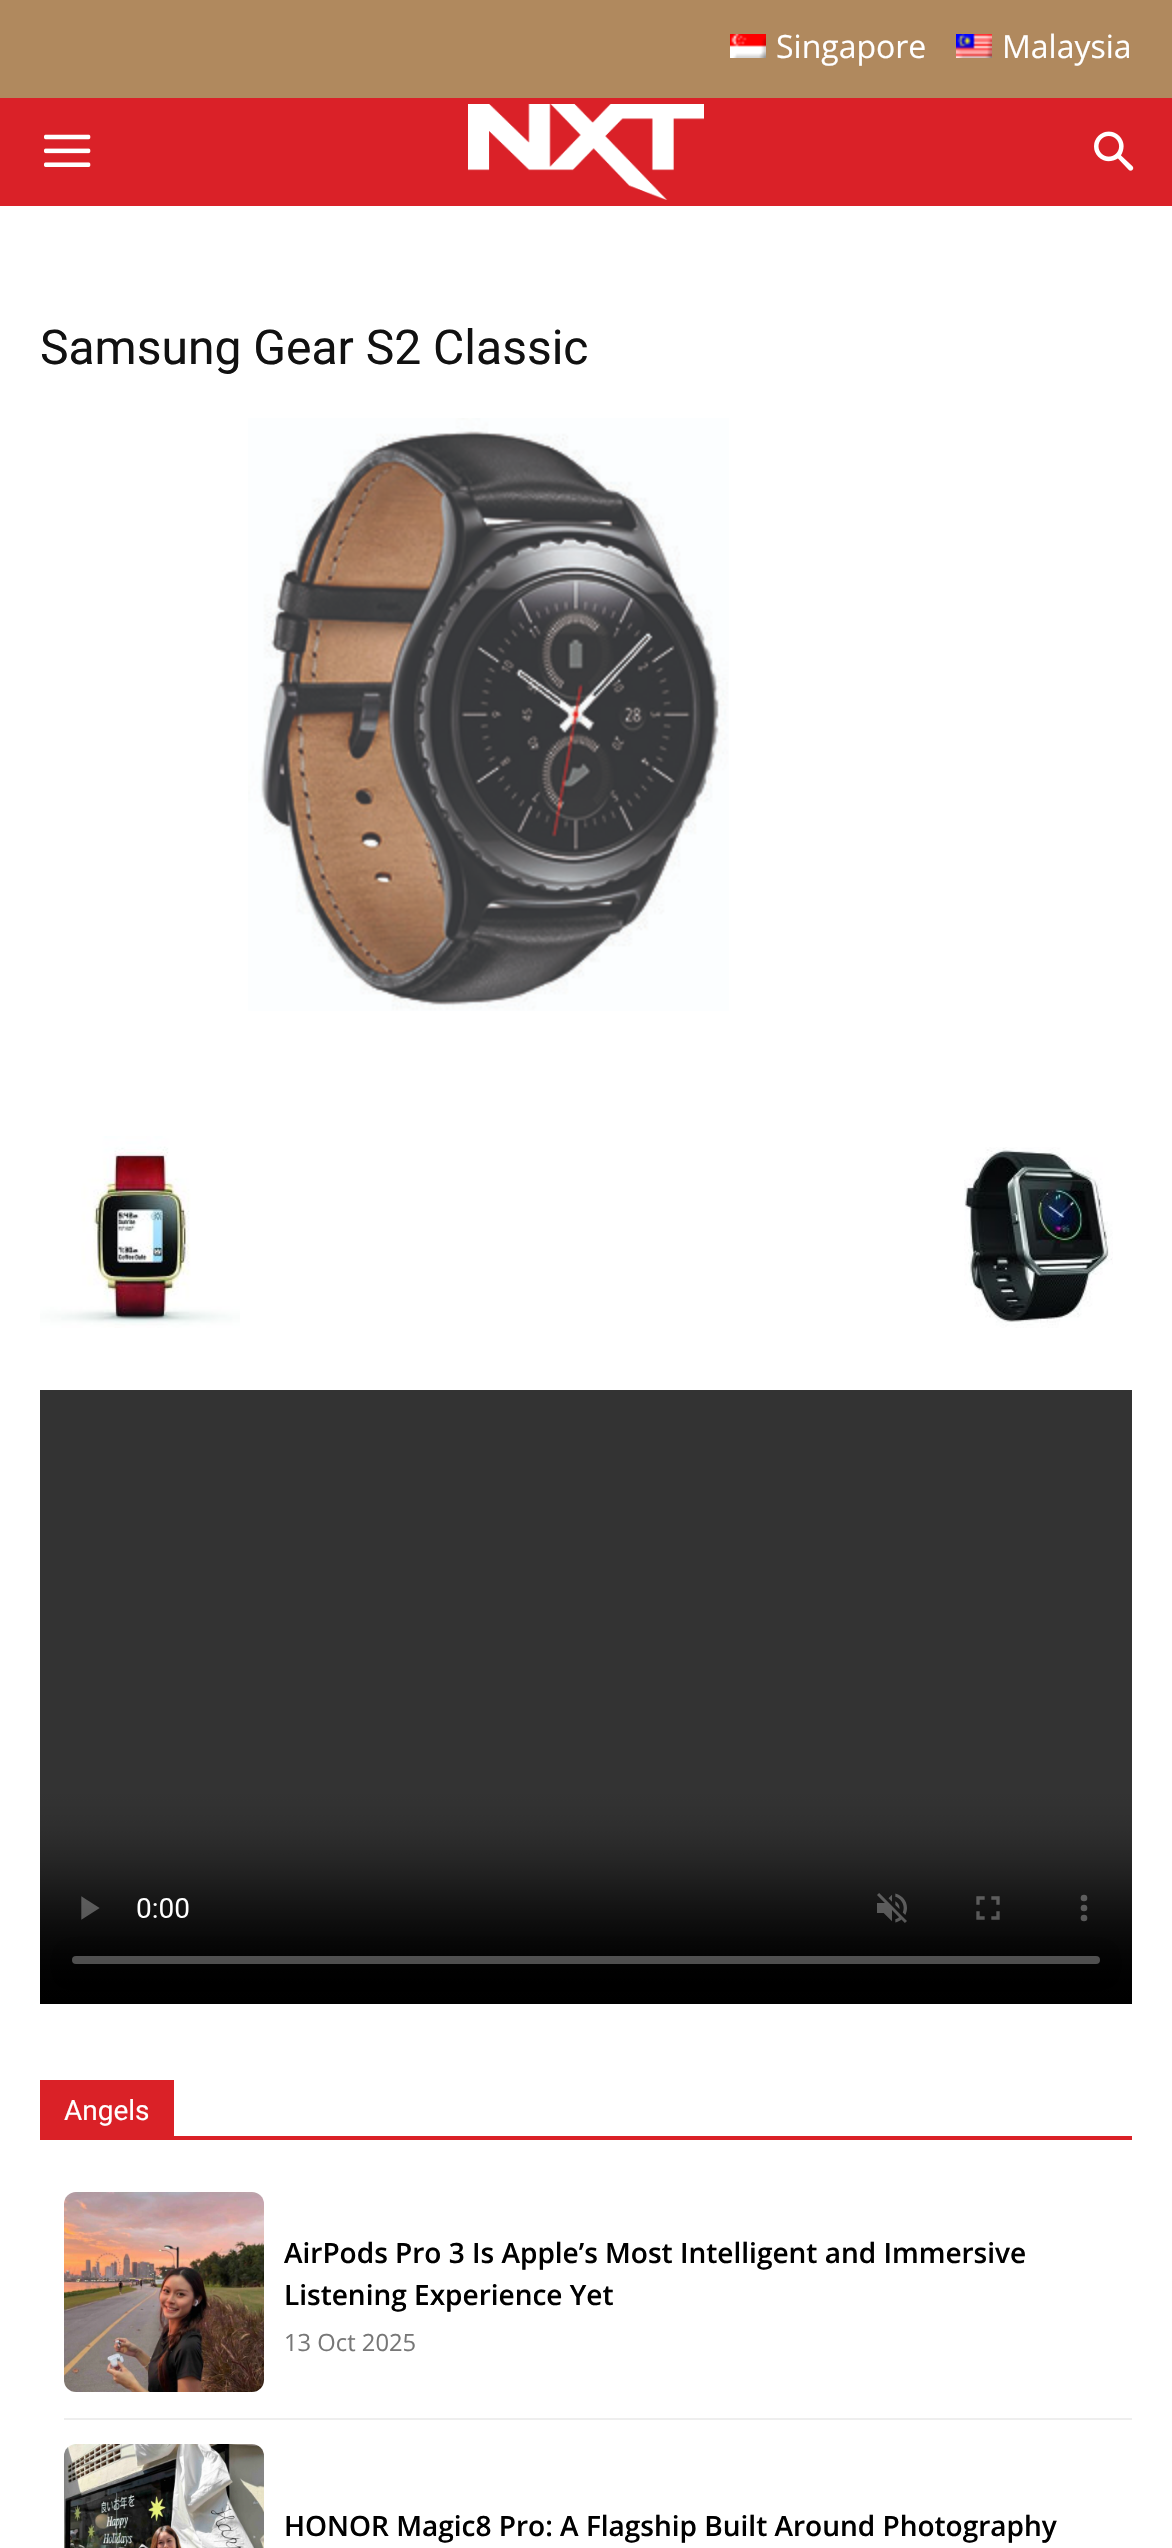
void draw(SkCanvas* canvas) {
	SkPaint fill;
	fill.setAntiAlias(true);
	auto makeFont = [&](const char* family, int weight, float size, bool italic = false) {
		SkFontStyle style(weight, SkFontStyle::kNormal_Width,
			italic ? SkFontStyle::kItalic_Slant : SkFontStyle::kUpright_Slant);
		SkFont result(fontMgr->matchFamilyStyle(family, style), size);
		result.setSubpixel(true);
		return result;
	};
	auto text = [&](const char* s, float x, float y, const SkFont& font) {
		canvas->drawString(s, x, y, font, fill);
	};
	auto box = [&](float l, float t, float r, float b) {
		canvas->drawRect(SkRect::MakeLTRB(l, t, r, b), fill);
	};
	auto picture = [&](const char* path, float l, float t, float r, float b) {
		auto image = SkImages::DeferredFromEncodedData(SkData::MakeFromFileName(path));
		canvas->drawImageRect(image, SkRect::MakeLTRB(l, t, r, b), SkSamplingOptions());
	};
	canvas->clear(0xFFFFFFFF);
	fill.setColor(0xFFB0895E);
	box(0, 0, 1172, 98);
	picture("image0.png", 730, 34, 766, 58);
	picture("image1.png", 956, 34, 992, 58);
	fill.setColor(0xFFDA2128);
	box(0, 98, 1172, 206);
	picture("image2.png", 44, 134, 91, 167);
	picture("image3.png", 468, 104, 704, 200);
	picture("image4.png", 1094, 131, 1134, 171);
	picture("image5.png", 248, 418, 729, 1011);
	picture("image6.png", 40, 1136, 240, 1328);
	picture("image7.png", 964, 1147, 1113, 1328);
	picture("image8.png", 40, 1390, 1132, 2004);
	fill.setColor(0xFFDA2127);
	box(40, 2136, 1132, 2140);
	box(40, 2080, 174, 2136);
	fill.setColor(0xFFEEEEEE);
	box(64, 2418, 1132, 2420);
	picture("image9.png", 64, 2192, 264, 2392);
	picture("image10.png", 64, 2444, 264, 2548);
	auto font1 = makeFont("Open Sans", 400, 32);
	fill.setColor(0xFFFFFFFF);
	text("Singapore", 776, 58, font1);
	text("Malaysia", 1002, 58, font1);
	auto font2 = makeFont("Roboto", 400, 48);
	fill.setColor(0xFF111111);
	text("Samsung Gear S2 Classic", 40, 364, font2);
	auto font3 = makeFont("Roboto", 400, 28);
	fill.setColor(0xFFFFFFFF);
	text("Angels", 64, 2120, font3);
	auto font4 = makeFont("Open Sans", 600, 28);
	fill.setColor(0xFF000000);
	text("AirPods Pro 3 Is Apple’s Most Intelligent and Immersive", 284, 2263, font4);
	text("Listening Experience Yet", 284, 2305, font4);
	auto font5 = makeFont("Open Sans", 400, 23.75f);
	fill.setColor(0xFF777777);
	text("13 Oct 2025", 284, 2351, font5);
	fill.setColor(0xFF000000);
	text("HONOR Magic8 Pro: A Flagship Built Around Photography", 284, 2536, font4);
}
